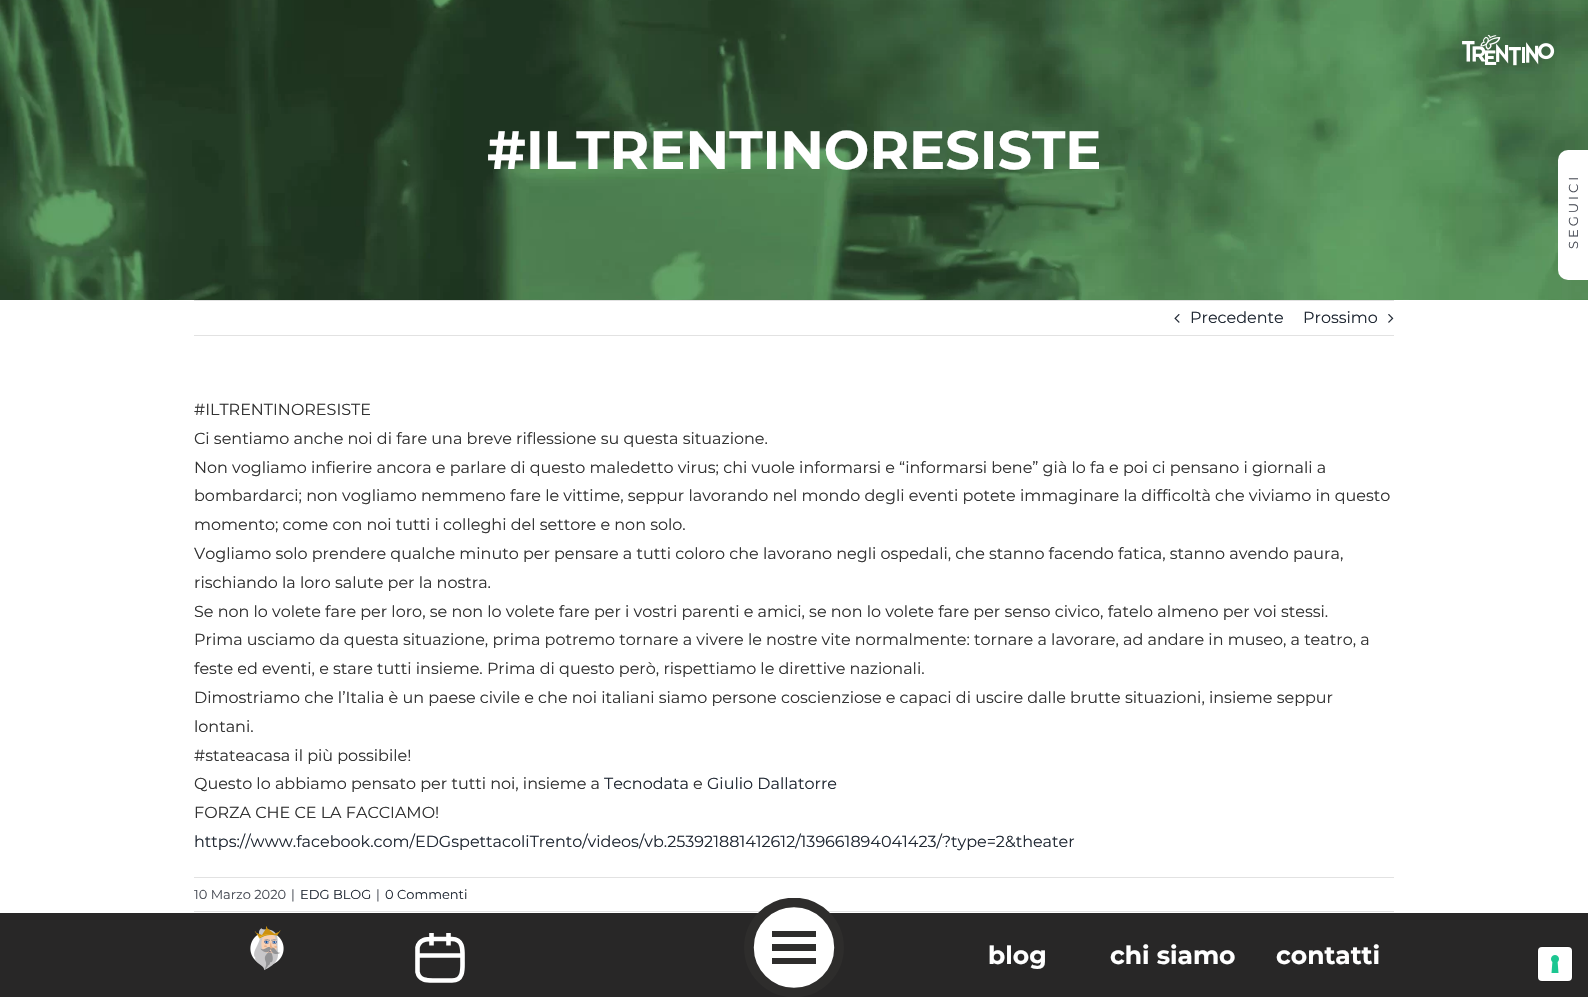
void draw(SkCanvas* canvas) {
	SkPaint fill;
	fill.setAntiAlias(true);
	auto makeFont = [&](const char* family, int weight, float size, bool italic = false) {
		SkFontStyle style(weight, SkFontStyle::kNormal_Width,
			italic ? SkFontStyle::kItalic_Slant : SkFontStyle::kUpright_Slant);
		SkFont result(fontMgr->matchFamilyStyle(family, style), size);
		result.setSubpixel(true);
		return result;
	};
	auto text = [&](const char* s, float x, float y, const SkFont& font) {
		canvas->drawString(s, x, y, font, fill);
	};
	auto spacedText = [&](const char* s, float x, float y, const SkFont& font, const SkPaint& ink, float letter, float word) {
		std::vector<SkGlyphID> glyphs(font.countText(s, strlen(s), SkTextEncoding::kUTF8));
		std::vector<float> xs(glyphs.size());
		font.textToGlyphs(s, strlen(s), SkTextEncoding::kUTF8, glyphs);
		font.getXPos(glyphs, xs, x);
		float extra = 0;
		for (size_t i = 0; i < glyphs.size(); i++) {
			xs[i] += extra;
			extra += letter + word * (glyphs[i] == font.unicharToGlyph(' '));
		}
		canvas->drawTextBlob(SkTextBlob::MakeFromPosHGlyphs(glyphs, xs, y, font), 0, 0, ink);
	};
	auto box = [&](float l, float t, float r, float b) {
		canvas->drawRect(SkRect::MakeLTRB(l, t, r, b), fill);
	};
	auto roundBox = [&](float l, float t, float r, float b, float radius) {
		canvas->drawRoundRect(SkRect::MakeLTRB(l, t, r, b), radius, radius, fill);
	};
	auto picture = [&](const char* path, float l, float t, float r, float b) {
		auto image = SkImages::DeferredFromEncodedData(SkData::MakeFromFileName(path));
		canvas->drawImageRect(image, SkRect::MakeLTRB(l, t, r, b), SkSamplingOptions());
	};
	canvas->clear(0xFFFFFFFF);
	picture("image0.png", 0, 0, 1588, 300);
	picture("image1.png", 1462, 34, 1555, 66);
	fill.setColor(0xFFFFFFFF);
	roundBox(1558, 150, 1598, 280, 10);
	fill.setColor(0xFFE2E2E2);
	box(194, 300, 1394, 301);
	box(194, 335, 1394, 336);
	picture("image2.png", 1174, 314, 1180, 323);
	picture("image3.png", 1388, 314, 1394, 323);
	box(194, 877, 1394, 878);
	box(194, 911, 1394, 912);
	fill.setColor(0xFF282727);
	box(0, 913, 1588, 997);
	picture("image4.png", 250, 926, 284, 971);
	fill.setStyle(SkPaint::kStroke_Style);
	fill.setStrokeWidth(4.6f);
	fill.setColor(0xFFFFFFFF);
	canvas->drawPath(SkPathBuilder().moveTo(417.5f, 955.5f).lineTo(462.5f, 955.5f).moveTo(448.5f, 933).lineTo(448.5f, 945.5f).moveTo(431.5f, 933).lineTo(431.5f, 945.5f).moveTo(452, 980.5f).lineTo(436, 980.5f).cubicTo(428.5f, 980.5f, 419.5f, 981.5f, 417.5f, 972).lineTo(417.5f, 947.5f).cubicTo(419.5f, 938, 428.5f, 939, 436, 939).lineTo(452, 939).cubicTo(464, 939, 462.5f, 951.5f, 462.5f, 960).cubicTo(462.5f, 968, 464, 980.5f, 452, 980.5f).close().detach(), fill);
	fill.setStyle(SkPaint::kFill_Style);
	canvas->drawPath(SkPathBuilder().moveTo(794, 992).cubicTo(819, 992, 839, 972, 839, 948).cubicTo(839, 923, 819, 903, 794, 903).cubicTo(769, 903, 749, 923, 749, 948).cubicTo(749, 972, 769, 992, 794, 992).detach(), fill);
	canvas->save();
	canvas->clipRect(SkRect::MakeLTRB(744, 898, 844, 997));
	fill.setStyle(SkPaint::kStroke_Style);
	fill.setStrokeWidth(9.6f);
	fill.setColor(0xFF2E2D2C);
	canvas->drawCircle(794, 947.5f, 45, fill);
	canvas->restore();
	fill.setStyle(SkPaint::kFill_Style);
	box(772, 931, 816, 937);
	box(772, 944, 816, 951);
	box(772, 958, 816, 964);
	fill.setStyle(SkPaint::kStroke_Style);
	fill.setStrokeWidth(1);
	fill.setColor(0xFF222121);
	canvas->drawRoundRect(SkRect::MakeLTRB(1537.5f, 946.5f, 1572.5f, 981.5f), 4.5f, 4.5f, fill);
	fill.setStyle(SkPaint::kFill_Style);
	fill.setColor(0xFFFFFFFF);
	roundBox(1538, 947, 1572, 981, 4);
	picture("image5.png", 1551, 955, 1559, 973);
	auto font1 = makeFont("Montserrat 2", 100, 54);
	text("#ILTRENTINORESISTE", 487, 169, font1);
	auto font2 = makeFont("Montserrat", 100, 13);
	fill.setColor(0xFF4A4E57);
	canvas->save();
	canvas->rotate(-90, 1578, 249);
	spacedText("SEGUICI", 1578, 249, font2, fill, 3, 0);
	canvas->restore();
	auto font3 = makeFont("Montserrat", 100, 16);
	fill.setColor(0xFF212934);
	text("Precedente", 1190, 323, font3);
	text("Prossimo", 1303, 323, font3);
	fill.setColor(0xFF333333);
	text("#ILTRENTINORESISTE", 194, 415, font3);
	text("Ci sentiamo anche noi di fare una breve riflessione su questa situazione.", 194, 444, font3);
	text("Non vogliamo infierire ancora e parlare di questo maledetto virus; chi vuole informarsi e “informarsi bene” già lo fa e poi ci pensano i giornali a", 194, 473, font3);
	text("bombardarci; non vogliamo nemmeno fare le vittime, seppur lavorando nel mondo degli eventi potete immaginare la difficoltà che viviamo in questo", 194, 501, font3);
	text("momento; come con noi tutti i colleghi del settore e non solo.", 194, 530, font3);
	text("Vogliamo solo prendere qualche minuto per pensare a tutti coloro che lavorano negli ospedali, che stanno facendo fatica, stanno avendo paura,", 194, 559, font3);
	text("rischiando la loro salute per la nostra.", 194, 588, font3);
	text("Se non lo volete fare per loro, se non lo volete fare per i vostri parenti e amici, se non lo volete fare per senso civico, fatelo almeno per voi stessi.", 194, 617, font3);
	text("Prima usciamo da questa situazione, prima potremo tornare a vivere le nostre vite normalmente: tornare a lavorare, ad andare in museo, a teatro, a", 194, 645, font3);
	text("feste ed eventi, e stare tutti insieme. Prima di questo però, rispettiamo le direttive nazionali.", 194, 674, font3);
	text("Dimostriamo che l’Italia è un paese civile e che noi italiani siamo persone coscienziose e capaci di uscire dalle brutte situazioni, insieme seppur", 194, 703, font3);
	text("lontani.", 194, 732, font3);
	text("#stateacasa il più possibile!", 194, 761, font3);
	text("Questo lo abbiamo pensato per tutti noi, insieme a", 194, 789, font3);
	fill.setColor(0xFF212934);
	text("Tecnodata", 604, 789, font3);
	fill.setColor(0xFF333333);
	text("e", 693, 789, font3);
	fill.setColor(0xFF212934);
	text("Giulio Dallatorre", 707, 789, font3);
	fill.setColor(0xFF333333);
	text("FORZA CHE CE LA FACCIAMO!", 194, 818, font3);
	fill.setColor(0xFF212934);
	text("https://www.facebook.com/EDGspettacoliTrento/videos/vb.253921881412612/139661894041423/?type=2&theater", 194, 847, font3);
	fill.setColor(0xFF4A4E57);
	text("10 Marzo 2020", 194, 899, font2);
	text("|", 291, 899, font2);
	fill.setColor(0xFF212934);
	text("EDG BLOG", 300, 899, font2);
	fill.setColor(0xFF4A4E57);
	text("|", 376, 899, font2);
	fill.setColor(0xFF212934);
	text("0 Commenti", 385, 899, font2);
	auto font4 = makeFont("Montserrat 2", 100, 25);
	fill.setColor(0xFFFFFFFF);
	text("blog", 988, 964, font4);
	text("chi siamo", 1110, 964, font4);
	text("contatti", 1276, 964, font4);
}
